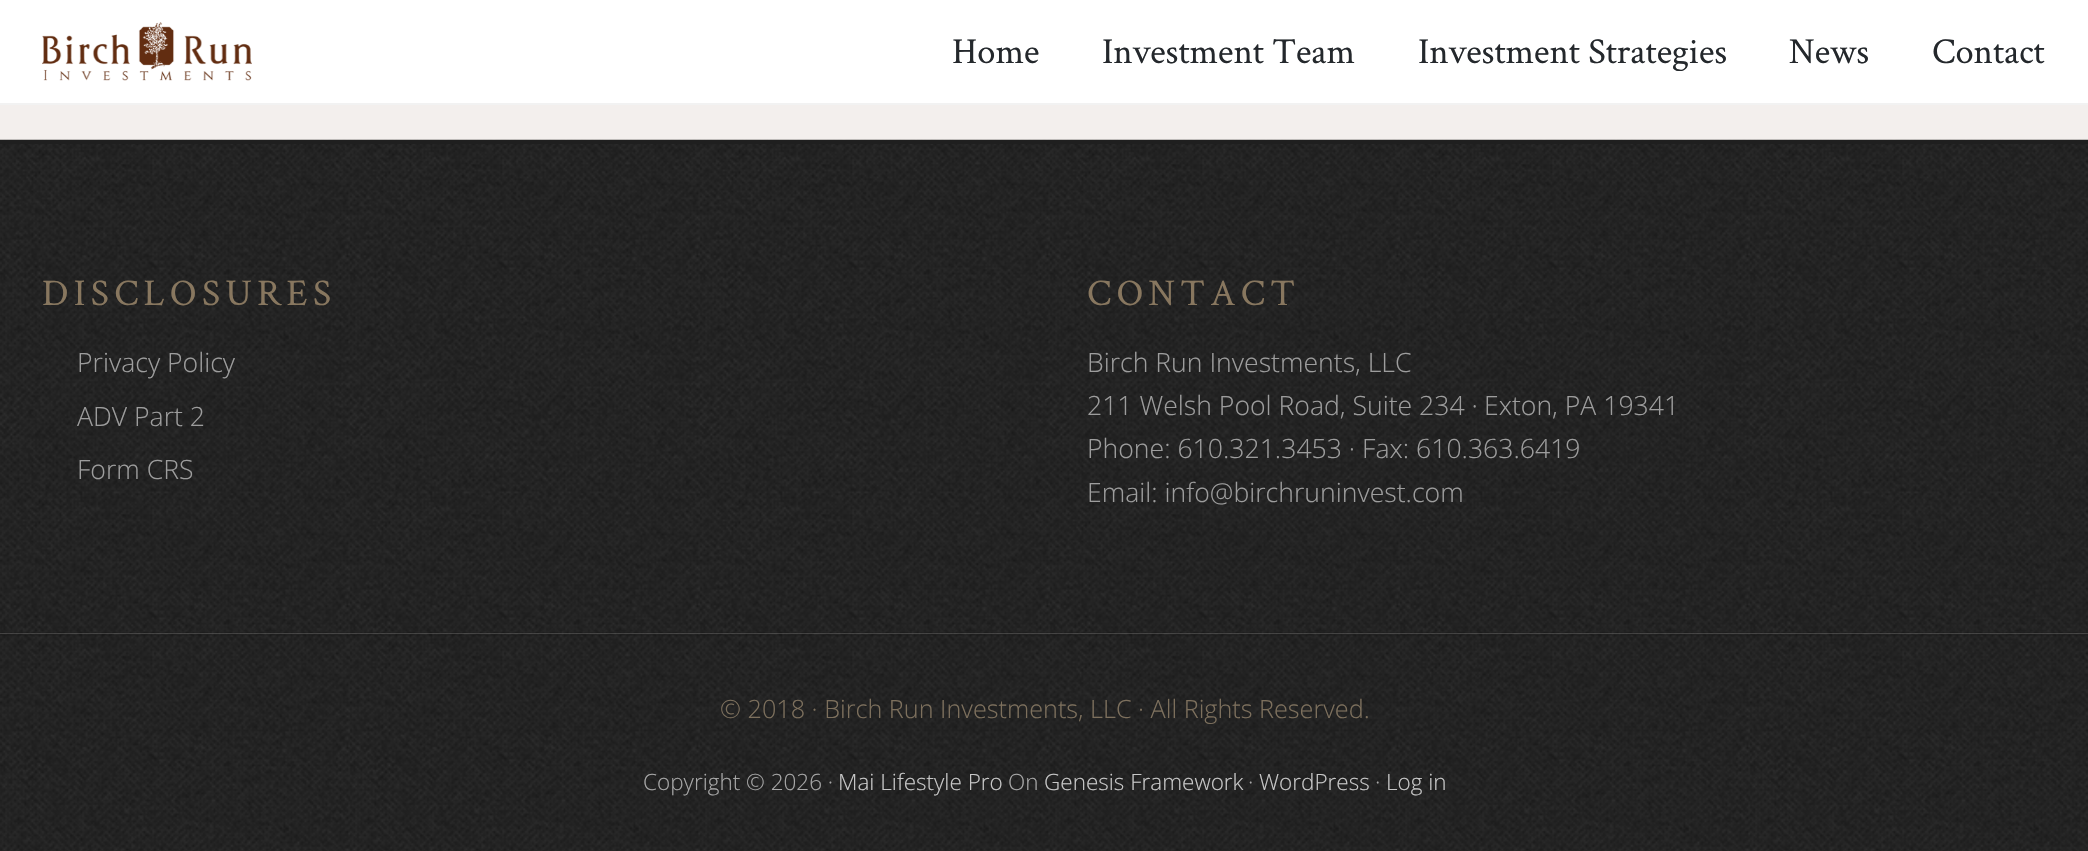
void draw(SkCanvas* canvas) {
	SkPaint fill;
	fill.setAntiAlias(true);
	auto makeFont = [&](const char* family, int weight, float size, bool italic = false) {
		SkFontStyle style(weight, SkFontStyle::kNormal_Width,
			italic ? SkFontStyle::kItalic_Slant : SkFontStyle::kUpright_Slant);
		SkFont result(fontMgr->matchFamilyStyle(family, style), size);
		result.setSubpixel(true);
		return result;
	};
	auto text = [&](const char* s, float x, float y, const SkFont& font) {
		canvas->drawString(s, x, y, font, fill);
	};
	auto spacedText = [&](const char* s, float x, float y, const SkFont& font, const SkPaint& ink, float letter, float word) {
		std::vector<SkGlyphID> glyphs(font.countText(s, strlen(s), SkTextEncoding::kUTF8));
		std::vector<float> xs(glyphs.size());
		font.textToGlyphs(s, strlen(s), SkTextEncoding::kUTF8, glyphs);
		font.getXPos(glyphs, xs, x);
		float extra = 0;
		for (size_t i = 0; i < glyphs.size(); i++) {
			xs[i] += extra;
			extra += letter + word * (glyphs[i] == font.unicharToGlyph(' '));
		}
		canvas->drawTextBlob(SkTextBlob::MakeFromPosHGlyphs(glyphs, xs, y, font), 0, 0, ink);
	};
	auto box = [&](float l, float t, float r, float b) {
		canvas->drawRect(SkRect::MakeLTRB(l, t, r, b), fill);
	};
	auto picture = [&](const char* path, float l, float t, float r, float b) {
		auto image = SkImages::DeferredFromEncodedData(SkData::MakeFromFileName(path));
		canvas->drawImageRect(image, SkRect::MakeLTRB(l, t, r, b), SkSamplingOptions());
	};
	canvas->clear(0xFFF3EFED);
	fill.setColor(0xFFFFFFFF);
	box(0, 0, 2088, 103);
	fill.setColor(0xFFF2F2F2);
	box(0, 103, 2088, 105);
	picture("image0.png", 42, 22, 252, 81);
	picture("image1.png", 0, 139, 2088, 634);
	fill.setColor(0xFF1F1F1F);
	box(0, 140, 2088, 144);
	fill.setColor(0x1A000000);
	box(0, 632, 2088, 634);
	picture("image2.png", 0, 633, 2088, 851);
	box(0, 634, 2088, 636);
	auto font1 = makeFont("Crimson Text", 400, 36.5f);
	fill.setColor(0xFF24282C);
	text("Home", 952, 63, font1);
	text("Investment Team", 1102, 63, font1);
	text("Investment Strategies", 1418, 63, font1);
	text("News", 1789, 63, font1);
	text("Contact", 1932, 63, font1);
	auto font2 = makeFont("Crimson Text", 400, 37.75f);
	fill.setColor(0xFF88775F);
	spacedText("DISCLOSURES", 42, 305, font2, fill, 5.25f, 0);
	auto font3 = makeFont("Open Sans", 300, 26.6f);
	fill.setColor(0xFF9D9D9D);
	text("Privacy Policy", 77, 372, font3);
	text("ADV Part 2", 77, 426, font3);
	text("Form CRS", 77, 479, font3);
	fill.setColor(0xFF88775F);
	spacedText("CONTACT", 1087, 305, font2, fill, 5.25f, 0);
	fill.setColor(0xFF9D9D9D);
	text("Birch Run Investments, LLC", 1087, 372, font3);
	text("211 Welsh Pool Road, Suite 234 ·", 1087, 415, font3);
	text("Exton, PA 19341", 1484, 415, font3);
	text("Phone: 610.321.3453 · Fax: 610.363.6419", 1087, 458, font3);
	text("Email: info@birchruninvest.com", 1087, 502, font3);
	auto font4 = makeFont("Open Sans", 300, 25.2f);
	fill.setColor(0xFF7D705D);
	text("© 2018 · Birch Run Investments, LLC · All Rights Reserved.", 720, 718, font4);
	auto font5 = makeFont("Open Sans", 300, 22.5f);
	fill.setColor(0xFFA7A7A7);
	text("Copyright © 2026 ·", 643, 790, font5);
	fill.setColor(0xFFC8C8C8);
	text("Mai Lifestyle Pro", 838, 790, font5);
	fill.setColor(0xFFA7A7A7);
	text("On", 1008, 790, font5);
	fill.setColor(0xFFC8C8C8);
	text("Genesis Framework", 1044, 790, font5);
	fill.setColor(0xFFA7A7A7);
	text("·", 1248, 790, font5);
	fill.setColor(0xFFC8C8C8);
	text("WordPress", 1259, 790, font5);
	fill.setColor(0xFFA7A7A7);
	text("·", 1375, 790, font5);
	fill.setColor(0xFFC8C8C8);
	text("Log in", 1386, 790, font5);
}
